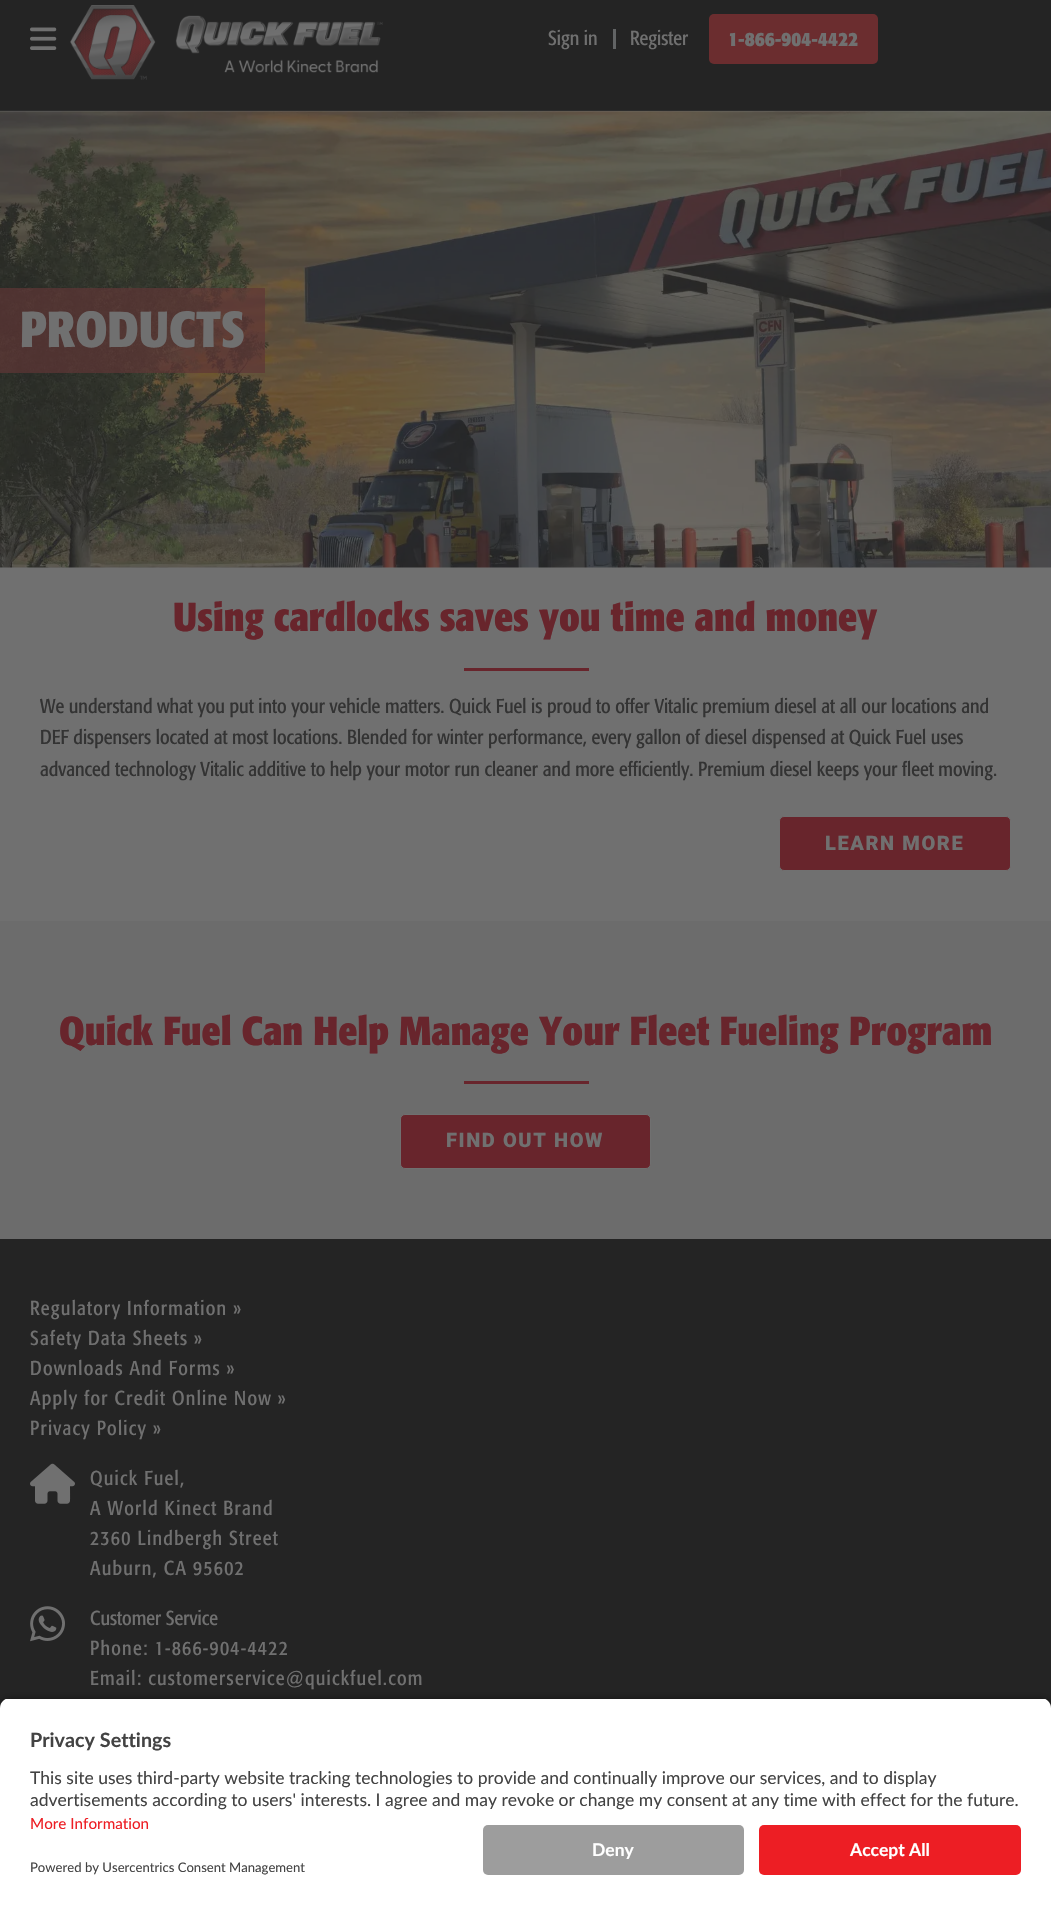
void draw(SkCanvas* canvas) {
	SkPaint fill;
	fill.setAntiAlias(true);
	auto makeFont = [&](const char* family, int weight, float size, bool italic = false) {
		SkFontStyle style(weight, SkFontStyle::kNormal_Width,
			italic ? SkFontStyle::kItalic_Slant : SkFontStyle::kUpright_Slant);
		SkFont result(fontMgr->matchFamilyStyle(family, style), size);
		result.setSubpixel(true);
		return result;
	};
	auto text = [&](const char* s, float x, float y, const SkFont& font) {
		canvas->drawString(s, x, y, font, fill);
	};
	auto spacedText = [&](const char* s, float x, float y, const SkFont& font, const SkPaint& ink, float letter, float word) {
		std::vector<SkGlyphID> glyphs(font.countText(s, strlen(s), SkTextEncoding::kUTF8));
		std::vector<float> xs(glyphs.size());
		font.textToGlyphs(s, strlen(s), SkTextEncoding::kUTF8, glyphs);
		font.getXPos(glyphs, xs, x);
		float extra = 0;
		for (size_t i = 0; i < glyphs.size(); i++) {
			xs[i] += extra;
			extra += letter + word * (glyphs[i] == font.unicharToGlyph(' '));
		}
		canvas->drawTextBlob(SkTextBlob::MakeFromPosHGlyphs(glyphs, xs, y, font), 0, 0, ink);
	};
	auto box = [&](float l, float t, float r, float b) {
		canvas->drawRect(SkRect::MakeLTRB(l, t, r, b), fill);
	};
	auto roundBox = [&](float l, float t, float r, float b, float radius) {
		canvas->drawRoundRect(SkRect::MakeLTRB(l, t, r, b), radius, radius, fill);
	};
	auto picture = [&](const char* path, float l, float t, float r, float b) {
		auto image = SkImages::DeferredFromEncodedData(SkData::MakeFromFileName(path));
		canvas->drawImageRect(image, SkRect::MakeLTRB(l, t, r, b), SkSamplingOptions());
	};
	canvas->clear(0xFF707070);
	fill.setColor(0xFF242424);
	box(0, 0, 1051, 110);
	fill.setColor(0xFF2C2C2C);
	box(0, 110, 1051, 111);
	picture("image0.png", 30, 27, 57, 50);
	picture("image1.png", 70, 5, 383, 80);
	fill.setColor(0xFF626465);
	box(613, 29, 616, 49);
	fill.setColor(0xFF6B2D2F);
	roundBox(709, 14, 878, 64, 5);
	picture("image2.png", 0, 111, 1051, 568);
	fill.setColor(0xB35E3535);
	box(0, 288, 265, 373);
	fill.setColor(0xFF68252C);
	box(464, 668, 589, 671);
	canvas->drawRoundRect(SkRect::MakeLTRB(779.5f, 816.5f, 1010.5f, 870.5f), 4.5f, 4.5f, fill);
	fill.setStyle(SkPaint::kStroke_Style);
	fill.setStrokeWidth(1);
	fill.setColor(0xFF707070);
	canvas->drawRoundRect(SkRect::MakeLTRB(779.5f, 816.5f, 1010.5f, 870.5f), 4.5f, 4.5f, fill);
	fill.setStyle(SkPaint::kFill_Style);
	fill.setColor(0xFF6C6C6C);
	box(0, 921, 1051, 1239);
	fill.setColor(0xFF68252C);
	box(464, 1081, 589, 1084);
	canvas->drawRoundRect(SkRect::MakeLTRB(400.5f, 1114.5f, 650.5f, 1168.5f), 4.5f, 4.5f, fill);
	fill.setStyle(SkPaint::kStroke_Style);
	fill.setColor(0xFF707070);
	canvas->drawRoundRect(SkRect::MakeLTRB(400.5f, 1114.5f, 650.5f, 1168.5f), 4.5f, 4.5f, fill);
	fill.setStyle(SkPaint::kFill_Style);
	fill.setColor(0xFF242424);
	box(0, 1239, 1051, 1708);
	picture("image3.png", 30, 1463, 75, 1504);
	picture("image4.png", 30, 1606, 65, 1642);
	fill.setColor(0xCC000000);
	fill.setMaskFilter(SkMaskFilter::MakeBlur(kNormal_SkBlurStyle, 4.5f));
	canvas->drawRoundRect(SkRect::MakeLTRB(0, 1701, 1051, 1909), 10, 10, fill);
	fill.setMaskFilter(nullptr);
	canvas->save();
	canvas->clipPath(SkPathBuilder().moveTo(10, 1698).lineTo(1041, 1698).cubicTo(1046.5f, 1698, 1051, 1702.5f, 1051, 1708).lineTo(1051, 1815).lineTo(0, 1815).lineTo(0, 1708).cubicTo(0, 1702.5f, 4.5f, 1698, 10, 1698).close().detach(), true);
	fill.setColor(0xFFFFFFFF);
	box(0, 1699, 1051, 1815);
	canvas->restore();
	box(0, 1815, 1051, 1905);
	fill.setColor(0xFF9D9D9D);
	roundBox(483, 1825, 744, 1875, 5);
	fill.setColor(0xFFED1E24);
	roundBox(759, 1825, 1021, 1875, 5);
	auto font1 = makeFont("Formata", 500, 20);
	fill.setColor(0xFF707070);
	text("Sign in", 548, 45, font1);
	text("Register", 630, 45, font1);
	auto font2 = makeFont("Formata", 700, 20);
	text("1-866-904-4422", 728, 46, font2);
	auto font3 = makeFont("Formata", 700, 50);
	text("PRODUCTS", 20, 347, font3);
	auto font4 = makeFont("Formata", 700, 40);
	fill.setColor(0xFF68252C);
	text("Using cardlocks saves you time and money", 173, 631, font4);
	fill.setColor(0xFF333333);
	text("We understand what you put into your vehicle matters. Quick Fuel is proud to offer Vitalic premium diesel at all our locations and", 40, 713, font1);
	text("DEF dispensers located at most locations. Blended for winter performance, every gallon of diesel dispensed at Quick Fuel uses", 40, 744, font1);
	text("advanced technology Vitalic additive to help your motor run cleaner and more efficiently. Premium diesel keeps your fleet moving.", 40, 776, font1);
	auto font5 = makeFont("Roboto", 900, 20);
	fill.setColor(0xFF707070);
	spacedText("LEARN MORE", 825, 850, font5, fill, 1.6f, 0);
	fill.setColor(0xFF68252C);
	text("Quick Fuel Can Help Manage Your Fleet Fueling Program", 59, 1045, font4);
	fill.setColor(0xFF707070);
	spacedText("FIND OUT HOW", 446, 1147, font5, fill, 1.6f, 0);
	spacedText("Regulatory Information »", 30, 1315, font1, fill, 1.25f, 0);
	spacedText("Safety Data Sheets »", 30, 1345, font1, fill, 1.25f, 0);
	spacedText("Downloads And Forms »", 30, 1375, font1, fill, 1.25f, 0);
	spacedText("Apply for Credit Online Now »", 30, 1405, font1, fill, 1.25f, 0);
	spacedText("Privacy Policy »", 30, 1435, font1, fill, 1.25f, 0);
	spacedText("Quick Fuel,", 90, 1485, font1, fill, 1.25f, 0);
	spacedText("A World Kinect Brand", 90, 1515, font1, fill, 1.25f, 0);
	spacedText("2360 Lindbergh Street", 90, 1545, font1, fill, 1.25f, 0);
	spacedText("Auburn, CA 95602", 90, 1575, font1, fill, 1.25f, 0);
	text("Customer Service", 90, 1625, font1);
	spacedText("Phone: 1-866-904-4422", 90, 1655, font1, fill, 1.25f, 0);
	spacedText("Email: customerservice@quickfuel.com", 90, 1685, font1, fill, 1.25f, 0);
	auto font6 = makeFont("Lato", 700, 19.75f);
	fill.setColor(0xFF434343);
	text("Privacy Settings", 30, 1747, font6);
	auto font7 = makeFont("Lato", 400, 17.5f);
	text("This site uses third-party website tracking technologies to provide and continually improve our services, and to display", 30, 1784, font7);
	text("advertisements according to users' interests. I agree and may revoke or change my consent at any time with effect for the future.", 30, 1806, font7);
	auto font8 = makeFont("Lato", 400, 15.25f);
	fill.setColor(0xFFED1E24);
	text("More Information", 30, 1829, font8);
	auto font9 = makeFont("Lato", 400, 13.1f);
	fill.setColor(0xFF434343);
	text("Powered by Usercentrics Consent Management", 30, 1872, font9);
	auto font10 = makeFont("Lato", 700, 17.5f);
	fill.setColor(0xFFFFFFFF);
	text("Deny", 592, 1856, font10);
	text("Accept All", 850, 1856, font10);
}
